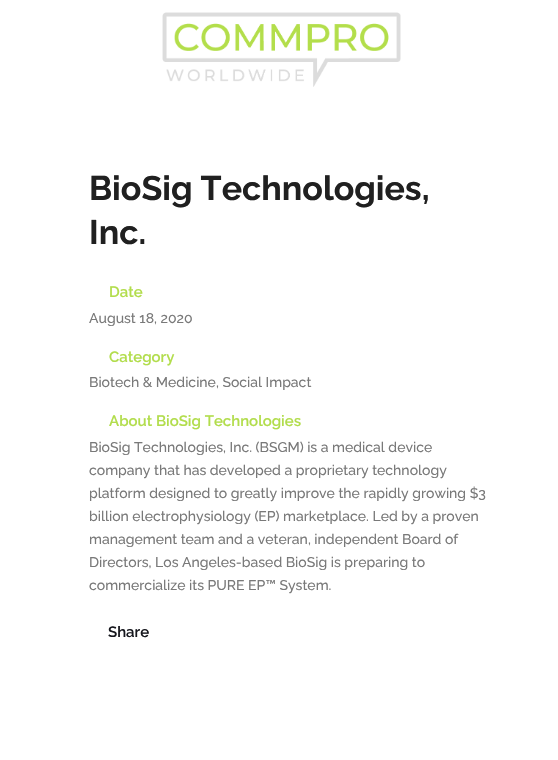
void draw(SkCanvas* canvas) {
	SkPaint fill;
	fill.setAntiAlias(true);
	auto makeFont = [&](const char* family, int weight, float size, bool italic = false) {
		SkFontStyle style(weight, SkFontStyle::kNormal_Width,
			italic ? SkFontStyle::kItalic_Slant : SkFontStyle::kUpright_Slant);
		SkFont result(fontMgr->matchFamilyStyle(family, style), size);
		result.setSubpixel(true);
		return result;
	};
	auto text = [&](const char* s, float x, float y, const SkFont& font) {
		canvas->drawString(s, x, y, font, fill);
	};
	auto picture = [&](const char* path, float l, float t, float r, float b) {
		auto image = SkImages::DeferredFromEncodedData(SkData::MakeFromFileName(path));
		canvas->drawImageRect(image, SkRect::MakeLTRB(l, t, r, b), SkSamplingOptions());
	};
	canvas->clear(0xFFFFFFFF);
	picture("image0.png", 162, 12, 401, 87);
	auto font1 = makeFont("Raleway", 700, 34);
	fill.setColor(0xFF202020);
	text("BioSig Technologies,", 89, 200, font1);
	text("Inc.", 89, 244, font1);
	auto font2 = makeFont("Raleway", 600, 15);
	fill.setColor(0xFFB2DD4C);
	text("Date", 109, 297, font2);
	auto font3 = makeFont("Raleway", 500, 14);
	fill.setColor(0xFF797979);
	text("August 18, 2020", 89, 323, font3);
	fill.setColor(0xFFB2DD4C);
	text("Category", 109, 362, font2);
	fill.setColor(0xFF797979);
	text("Biotech & Medicine, Social Impact", 89, 387, font3);
	fill.setColor(0xFFB2DD4C);
	text("About BioSig Technologies", 109, 426, font2);
	fill.setColor(0xFF797979);
	text("BioSig Technologies, Inc. (BSGM) is a medical device", 89, 452, font3);
	text("company that has developed a proprietary technology", 89, 475, font3);
	text("platform designed to greatly improve the rapidly growing $3", 89, 498, font3);
	text("billion electrophysiology (EP) marketplace. Led by a proven", 89, 521, font3);
	text("management team and a veteran, independent Board of", 89, 544, font3);
	text("Directors, Los Angeles-based BioSig is preparing to", 89, 567, font3);
	text("commercialize its PURE EP™ System.", 89, 590, font3);
	fill.setColor(0xFF16171D);
	text("Share", 108, 637, font2);
}
